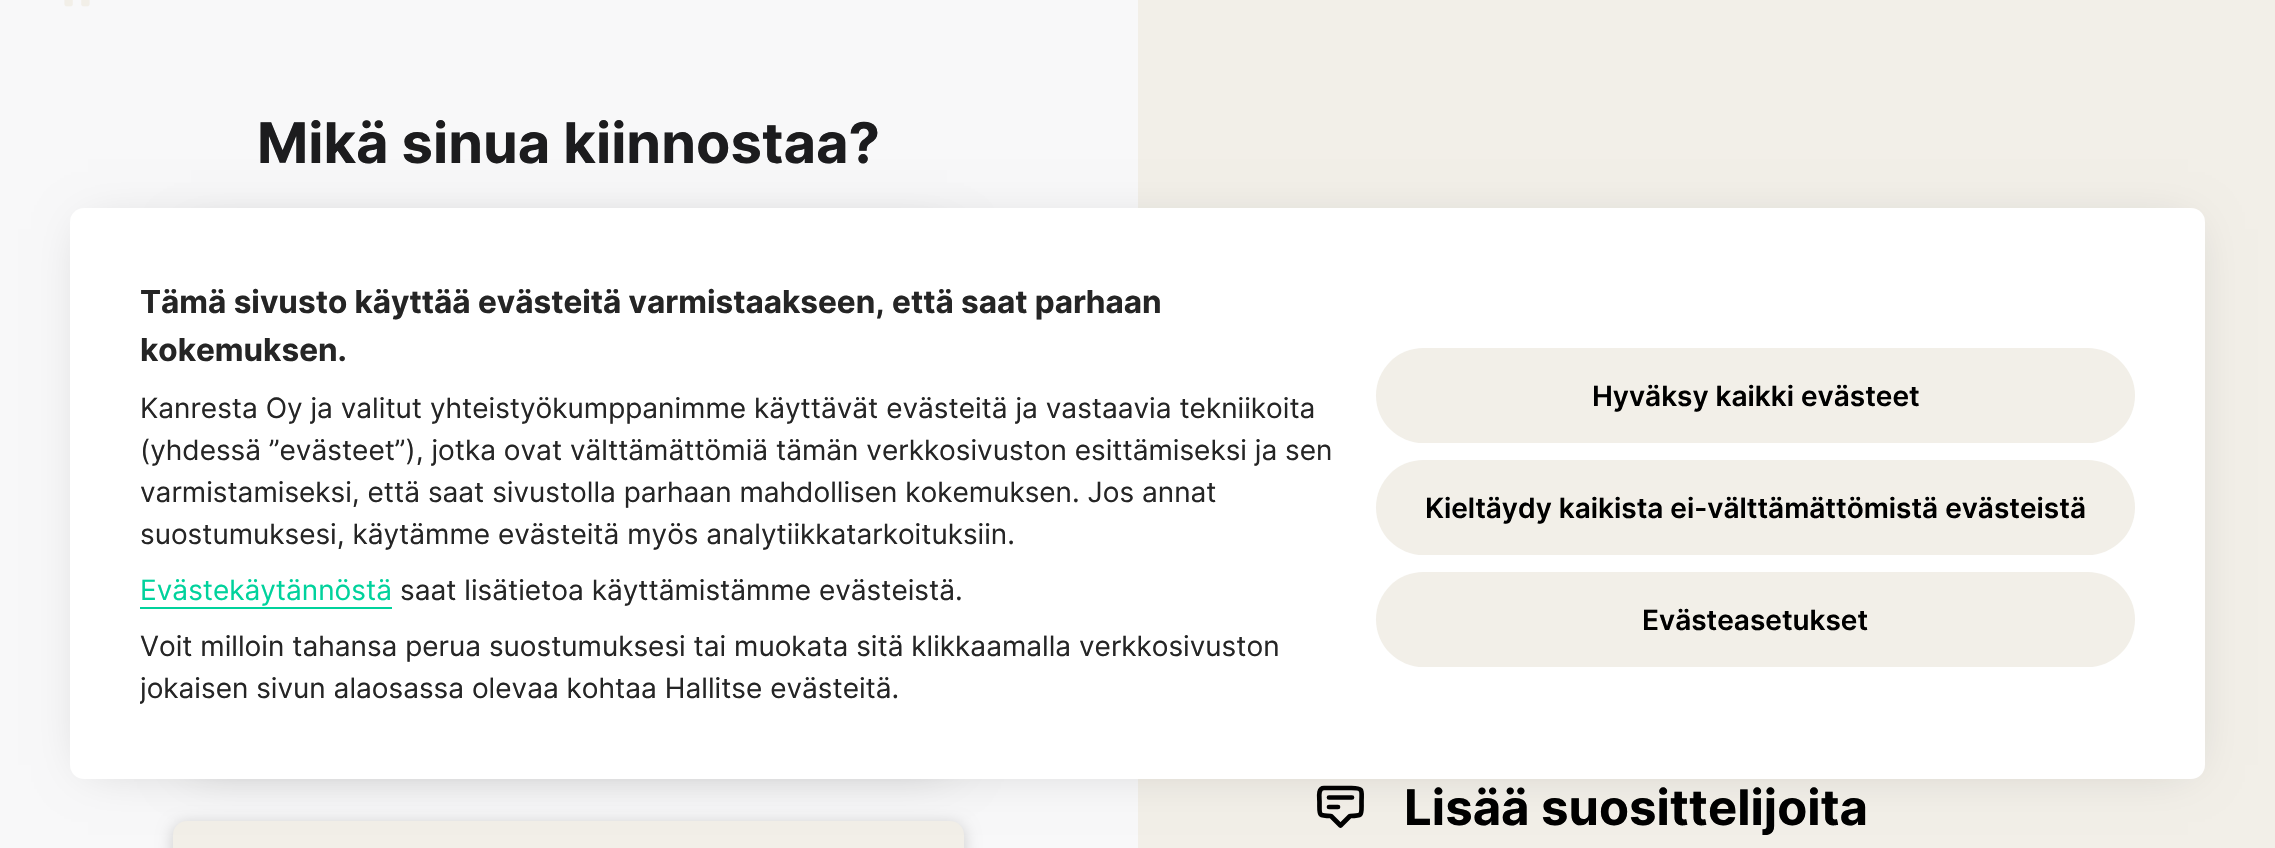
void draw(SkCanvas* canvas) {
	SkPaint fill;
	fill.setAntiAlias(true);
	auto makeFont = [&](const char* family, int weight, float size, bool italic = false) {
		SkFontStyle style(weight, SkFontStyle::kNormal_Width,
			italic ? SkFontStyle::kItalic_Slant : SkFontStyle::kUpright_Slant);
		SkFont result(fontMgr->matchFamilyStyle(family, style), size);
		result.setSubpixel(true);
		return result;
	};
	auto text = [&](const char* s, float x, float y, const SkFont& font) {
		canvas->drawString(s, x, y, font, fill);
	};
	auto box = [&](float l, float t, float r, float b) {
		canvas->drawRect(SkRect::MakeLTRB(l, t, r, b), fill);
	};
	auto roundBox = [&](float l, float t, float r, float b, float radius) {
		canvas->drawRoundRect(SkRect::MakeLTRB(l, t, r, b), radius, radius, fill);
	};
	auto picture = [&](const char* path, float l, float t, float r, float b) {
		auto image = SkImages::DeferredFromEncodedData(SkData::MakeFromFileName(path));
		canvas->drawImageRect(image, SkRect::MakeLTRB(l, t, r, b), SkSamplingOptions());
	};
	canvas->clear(0xFFF8F8F9);
	picture("image0.png", 64, 0, 90, 7);
	fill.setColor(0x2E000000);
	fill.setMaskFilter(SkMaskFilter::MakeBlur(kNormal_SkBlurStyle, 23.5f));
	canvas->drawRect(SkRect::MakeLTRB(191, 240, 947, 765), fill);
	fill.setMaskFilter(nullptr);
	fill.setMaskFilter(SkMaskFilter::MakeBlur(kNormal_SkBlurStyle, 8));
	canvas->drawRoundRect(SkRect::MakeLTRB(173, 824, 964, 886), 14, 14, fill);
	fill.setMaskFilter(nullptr);
	fill.setColor(0xFFF2EFE8);
	roundBox(173, 821, 964, 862, 14);
	box(1138, 0, 2275, 848);
	fill.setStyle(SkPaint::kStroke_Style);
	fill.setStrokeWidth(4.7f);
	fill.setStrokeCap(SkPaint::kRound_Cap);
	fill.setStrokeJoin(SkPaint::kRound_Join);
	fill.setColor(0xFF000000);
	canvas->drawPath(SkPathBuilder().moveTo(1329, 797.5f).lineTo(1352, 797.5f).moveTo(1329, 807).lineTo(1338, 807).moveTo(1340.5f, 825.5f).lineTo(1331, 816).cubicTo(1318, 816, 1319.5f, 815.5f, 1319.5f, 802).cubicTo(1319.5f, 798, 1317.5f, 788, 1324, 788).lineTo(1351.5f, 788).cubicTo(1364, 788, 1361.5f, 790.5f, 1361.5f, 802).cubicTo(1361.5f, 815.5f, 1363, 816, 1350, 816).close().detach(), fill);
	fill.setStyle(SkPaint::kFill_Style);
	fill.setColor(0x2E000000);
	fill.setMaskFilter(SkMaskFilter::MakeBlur(kNormal_SkBlurStyle, 23.5f));
	canvas->drawRect(SkRect::MakeLTRB(88, 229, 2188, 765), fill);
	fill.setMaskFilter(nullptr);
	fill.setColor(0xFFFFFFFF);
	roundBox(70, 208, 2205, 779, 14);
	fill.setColor(0xFF00D29C);
	box(140, 607, 392, 609);
	fill.setColor(0xFFF2EFE8);
	roundBox(1376, 348, 2135, 443, 47.5f);
	roundBox(1376, 460, 2135, 555, 47.5f);
	roundBox(1376, 572, 2135, 667, 47.5f);
	auto font1 = makeFont("Inter", 700, 56);
	fill.setColor(0xFF1C1C1E);
	text("Mikä sinua kiinnostaa?", 257, 163, font1);
	auto font2 = makeFont("Inter", 700, 49);
	fill.setColor(0xFF000000);
	text("Lisää suosittelijoita", 1404, 825, font2);
	auto font3 = makeFont("Inter", 700, 31.5f);
	fill.setColor(0xFF252525);
	text("Tämä sivusto käyttää evästeitä varmistaakseen, että saat parhaan", 140, 313, font3);
	text("kokemuksen.", 140, 361, font3);
	auto font4 = makeFont("Inter", 400, 28);
	text("Kanresta Oy ja valitut yhteistyökumppanimme käyttävät evästeitä ja vastaavia tekniikoita", 140, 418, font4);
	text("(yhdessä ”evästeet”), jotka ovat välttämättömiä tämän verkkosivuston esittämiseksi ja sen", 140, 460, font4);
	text("varmistamiseksi, että saat sivustolla parhaan mahdollisen kokemuksen. Jos annat", 140, 502, font4);
	text("suostumuksesi, käytämme evästeitä myös analytiikkatarkoituksiin.", 140, 544, font4);
	fill.setColor(0xFF00D29C);
	text("Evästekäytännöstä", 140, 600, font4);
	fill.setColor(0xFF252525);
	text("saat lisätietoa käyttämistämme evästeistä.", 400, 600, font4);
	text("Voit milloin tahansa perua suostumuksesi tai muokata sitä klikkaamalla verkkosivuston", 140, 656, font4);
	canvas->save();
	canvas->clipRect(SkRect::MakeLTRB(140, 278, 1334, 709));
	text("jokaisen sivun alaosassa olevaa kohtaa Hallitse evästeitä.", 140, 698, font4);
	canvas->restore();
	auto font5 = makeFont("Inter", 600, 28);
	fill.setColor(0xFF000000);
	text("Hyväksy kaikki evästeet", 1592, 406, font5);
	text("Kieltäydy kaikista ei-välttämättömistä evästeistä", 1425, 518, font5);
	text("Evästeasetukset", 1642, 630, font5);
}
